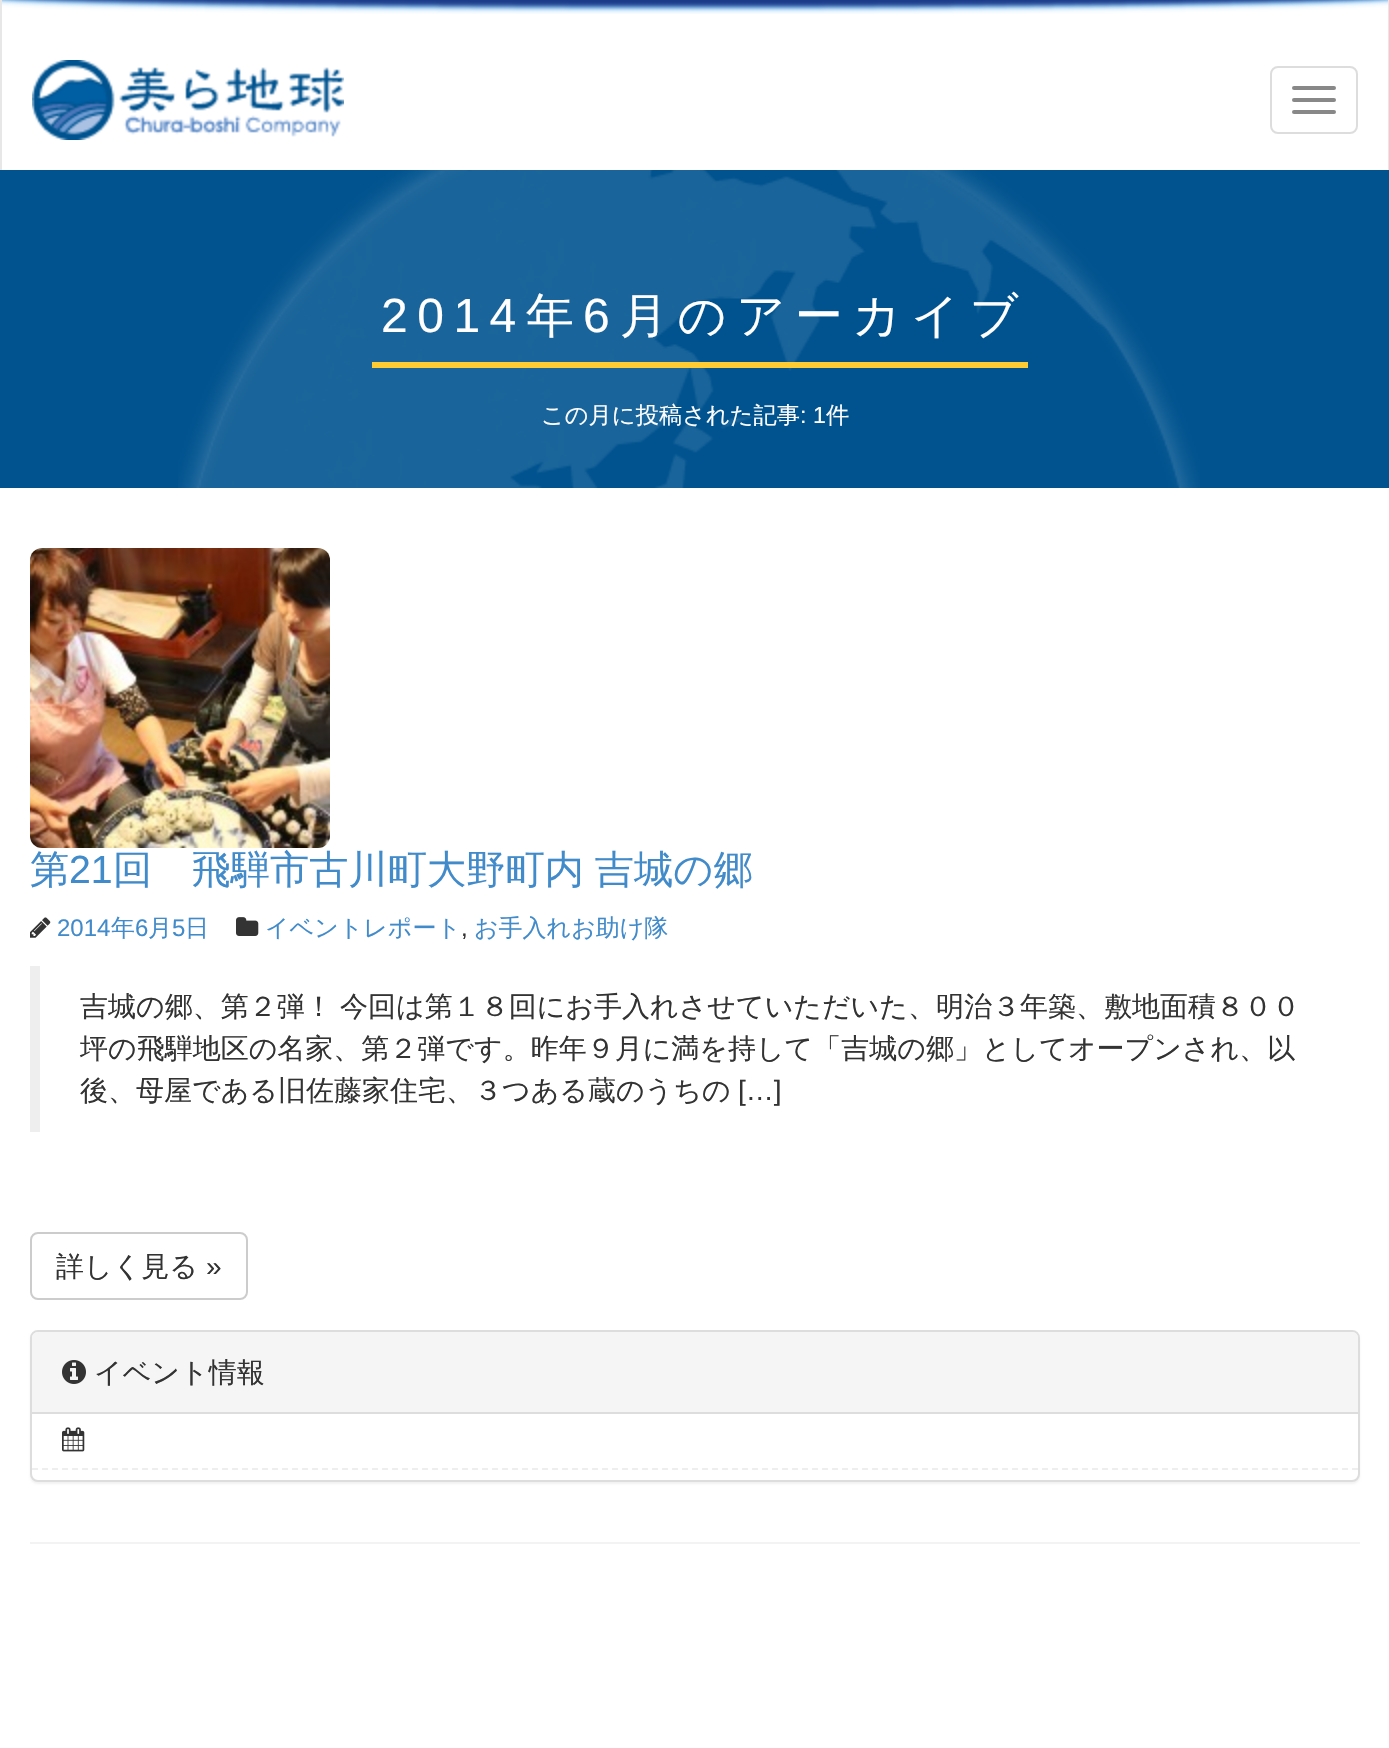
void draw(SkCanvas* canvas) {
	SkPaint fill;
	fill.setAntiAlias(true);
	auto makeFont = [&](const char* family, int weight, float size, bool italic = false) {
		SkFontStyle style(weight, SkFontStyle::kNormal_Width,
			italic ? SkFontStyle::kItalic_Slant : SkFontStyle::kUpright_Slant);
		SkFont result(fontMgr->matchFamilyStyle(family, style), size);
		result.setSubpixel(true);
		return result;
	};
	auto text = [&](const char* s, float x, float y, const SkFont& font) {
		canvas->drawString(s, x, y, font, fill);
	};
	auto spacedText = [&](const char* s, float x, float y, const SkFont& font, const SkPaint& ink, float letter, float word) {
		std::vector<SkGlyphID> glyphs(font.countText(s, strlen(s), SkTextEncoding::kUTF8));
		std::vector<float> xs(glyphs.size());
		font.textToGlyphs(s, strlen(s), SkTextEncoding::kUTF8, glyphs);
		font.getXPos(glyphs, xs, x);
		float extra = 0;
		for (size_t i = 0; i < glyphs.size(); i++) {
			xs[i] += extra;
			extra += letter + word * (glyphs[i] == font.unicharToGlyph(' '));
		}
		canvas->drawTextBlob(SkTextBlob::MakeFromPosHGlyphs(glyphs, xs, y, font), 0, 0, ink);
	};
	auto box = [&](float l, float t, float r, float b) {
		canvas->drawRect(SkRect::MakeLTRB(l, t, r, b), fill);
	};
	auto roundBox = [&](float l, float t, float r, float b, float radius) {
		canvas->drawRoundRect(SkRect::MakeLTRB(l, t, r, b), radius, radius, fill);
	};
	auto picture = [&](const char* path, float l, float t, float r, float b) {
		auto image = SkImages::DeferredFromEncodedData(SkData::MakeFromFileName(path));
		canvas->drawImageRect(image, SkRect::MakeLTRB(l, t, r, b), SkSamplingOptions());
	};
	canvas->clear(0xFFFFFFFF);
	picture("image0.png", 2, 0, 1388, 14);
	fill.setColor(0xFFE7E7E7);
	box(1388, 0, 1389, 170);
	box(0, 0, 2, 170);
	picture("image1.png", 32, 60, 344, 140);
	fill.setStyle(SkPaint::kStroke_Style);
	fill.setStrokeWidth(2);
	fill.setColor(0xFFDDDDDD);
	canvas->drawRoundRect(SkRect::MakeLTRB(1271, 67, 1357, 133), 7, 7, fill);
	fill.setStyle(SkPaint::kFill_Style);
	fill.setColor(0xFF888888);
	roundBox(1292, 86, 1336, 90, 2);
	roundBox(1292, 98, 1336, 102, 2);
	roundBox(1292, 110, 1336, 114, 2);
	fill.setColor(0xFF00538F);
	box(0, 170, 1389, 488);
	picture("image2.png", 178, 170, 1200, 488);
	fill.setColor(0xFFFFCC33);
	box(372, 362, 1028, 368);
	fill.setColor(0xFFF3F3F3);
	box(30, 1542, 1360, 1544);
	picture("image3.png", 30, 548, 330, 848);
	picture("image4.png", 30, 917, 51, 938);
	picture("image5.png", 236, 917, 259, 936);
	fill.setColor(0xFFEEEEEE);
	box(30, 966, 40, 1132);
	fill.setStyle(SkPaint::kStroke_Style);
	fill.setColor(0xFFCCCCCC);
	canvas->drawRoundRect(SkRect::MakeLTRB(31, 1233, 247, 1299), 7, 7, fill);
	fill.setStyle(SkPaint::kFill_Style);
	fill.setColor(0x0D000000);
	fill.setMaskFilter(SkMaskFilter::MakeBlur(kNormal_SkBlurStyle, 1));
	canvas->drawRoundRect(SkRect::MakeLTRB(30, 1332, 1360, 1484), 8, 8, fill);
	fill.setMaskFilter(nullptr);
	fill.setColor(0xFFFFFFFF);
	canvas->drawRoundRect(SkRect::MakeLTRB(31, 1331, 1359, 1481), 7, 7, fill);
	fill.setStyle(SkPaint::kStroke_Style);
	fill.setColor(0xFFDDDDDD);
	canvas->drawRoundRect(SkRect::MakeLTRB(31, 1331, 1359, 1481), 7, 7, fill);
	fill.setStyle(SkPaint::kFill_Style);
	fill.setColor(0xFFF5F5F5);
	canvas->drawPath(SkPathBuilder().moveTo(38, 1332).lineTo(1352, 1332).cubicTo(1355.5f, 1332, 1358, 1334.5f, 1358, 1338).lineTo(1358, 1414).lineTo(32, 1414).lineTo(32, 1338).cubicTo(32, 1334.5f, 34.5f, 1332, 38, 1332).close().detach(), fill);
	fill.setColor(0xFFDDDDDD);
	box(32, 1412, 1358, 1414);
	picture("image6.png", 62, 1360, 86, 1384);
	fill.setStyle(SkPaint::kStroke_Style);
	fill.setColor(0xFFEEEEEE);
	fill.setPathEffect(SkDashPathEffect::Make({{6, 4}}, 0));
	canvas->drawPath(SkPathBuilder().moveTo(32, 1469).lineTo(1358, 1469).detach(), fill);
	fill.setPathEffect(nullptr);
	picture("image7.png", 62, 1427, 85, 1452);
	auto font1 = makeFont("Liberation Sans", 400, 48);
	fill.setStyle(SkPaint::kFill_Style);
	fill.setColor(0xFFFFFFFF);
	spacedText("2014", 381, 332, font1, fill, 9.5f, 0);
	auto font2 = makeFont("WenQuanYi Zen Hei", 500, 48);
	spacedText("年", 526, 332, font2, fill, 9.5f, 0);
	spacedText("6", 583, 332, font1, fill, 9.5f, 0);
	spacedText("月のアーカイブ", 620, 332, font2, fill, 9.5f, 0);
	auto font3 = makeFont("WenQuanYi Zen Hei", 500, 23.25f);
	text("この月に投稿された記事", 541, 423, font3);
	auto font4 = makeFont("Liberation Sans", 400, 23.25f);
	text(": 1", 800, 423, font4);
	text("件", 826, 423, font3);
	auto font5 = makeFont("WenQuanYi Zen Hei", 500, 39.25f);
	fill.setColor(0xFF428BCA);
	text("第", 30, 883, font5);
	auto font6 = makeFont("Liberation Sans", 400, 39.25f);
	text("21", 69, 883, font6);
	spacedText("回　飛騨市古川町大野町内 吉城の郷", 113, 883, font5, fill, 0, -1);
	auto font7 = makeFont("Liberation Sans", 400, 24);
	text("2014", 57, 936, font7);
	auto font8 = makeFont("WenQuanYi Zen Hei", 500, 24);
	text("年", 111, 936, font8);
	text("6", 135, 936, font7);
	text("月", 148, 936, font8);
	text("5", 172, 936, font7);
	text("日", 185, 936, font8);
	text("イベントレポート", 265, 936, font8);
	fill.setColor(0xFF333333);
	text(",", 461, 936, font7);
	fill.setColor(0xFF428BCA);
	text("お手入れお助け隊", 474, 936, font8);
	auto font9 = makeFont("WenQuanYi Zen Hei", 500, 28);
	fill.setColor(0xFF333333);
	spacedText("吉城の郷、第２弾！ 今回は第１８回にお手入れさせていただいた、明治３年築、敷地面積８００", 80, 1016, font9, fill, 0, -1);
	text("坪の飛騨地区の名家、第２弾です。昨年９月に満を持して「吉城の郷」としてオープンされ、以", 80, 1058, font9);
	text("後、母屋である旧佐藤家住宅、３つある蔵のうちの", 80, 1100, font9);
	auto font10 = makeFont("Liberation Sans", 400, 28);
	text("[…]", 738, 1100, font10);
	text("詳しく見る", 56, 1276, font9);
	text("»", 206, 1276, font10);
	text("イベント情報", 94, 1382, font9);
}
